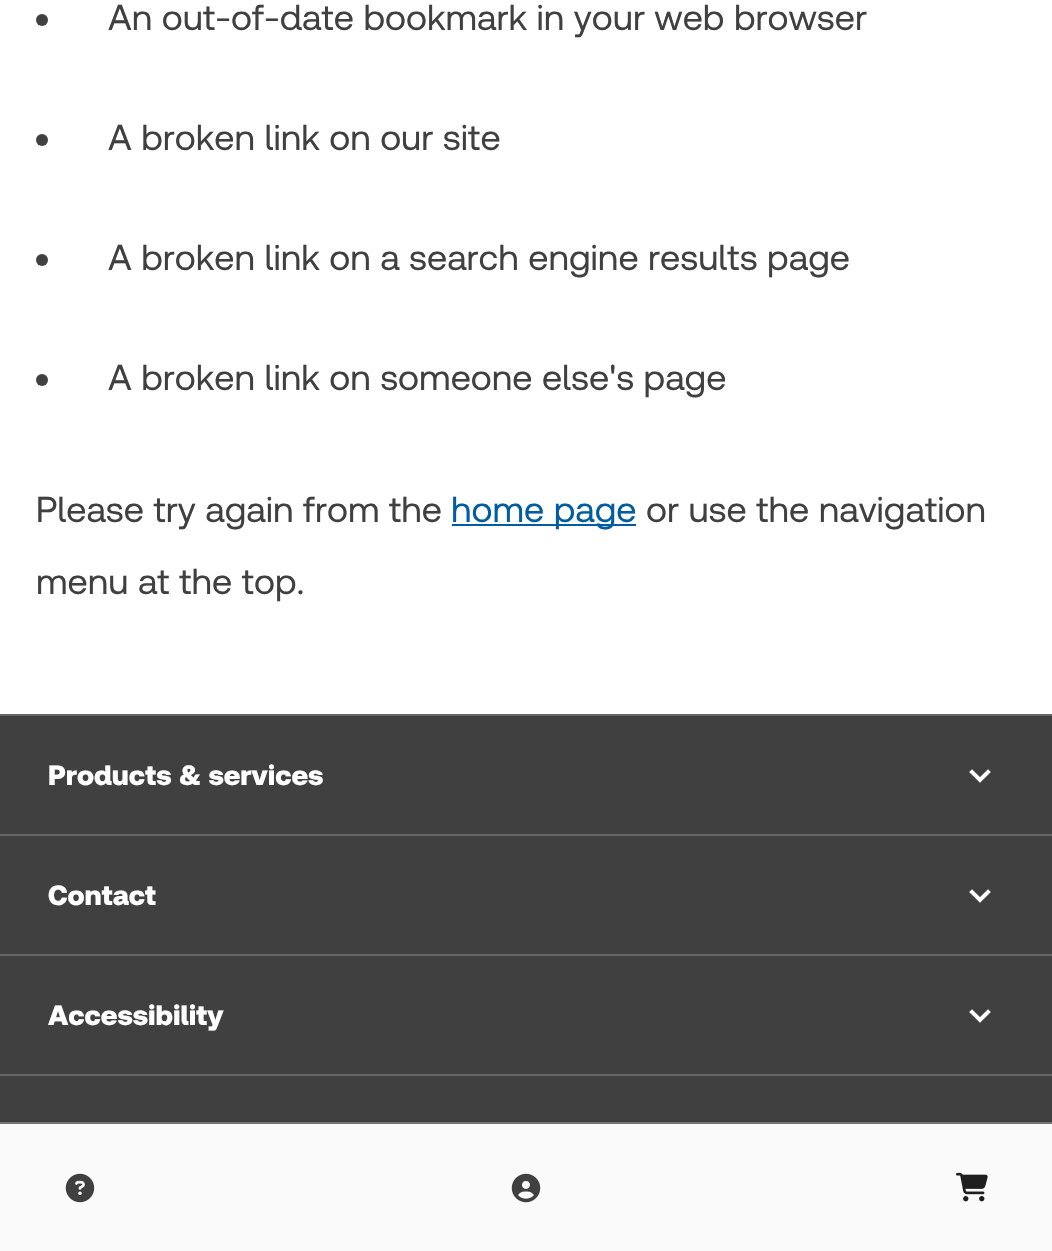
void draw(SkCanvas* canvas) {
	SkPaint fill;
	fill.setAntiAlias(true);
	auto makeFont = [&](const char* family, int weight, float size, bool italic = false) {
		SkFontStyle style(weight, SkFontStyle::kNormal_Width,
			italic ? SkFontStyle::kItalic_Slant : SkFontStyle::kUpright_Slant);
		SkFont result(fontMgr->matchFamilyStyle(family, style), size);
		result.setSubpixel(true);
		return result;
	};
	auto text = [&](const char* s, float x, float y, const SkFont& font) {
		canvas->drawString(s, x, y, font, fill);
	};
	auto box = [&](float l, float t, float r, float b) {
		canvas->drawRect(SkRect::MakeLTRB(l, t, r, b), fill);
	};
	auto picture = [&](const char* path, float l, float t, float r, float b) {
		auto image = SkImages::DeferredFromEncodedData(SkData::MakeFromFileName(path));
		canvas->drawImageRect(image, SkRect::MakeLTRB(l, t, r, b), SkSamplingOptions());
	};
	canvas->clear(0xFFFFFFFF);
	fill.setColor(0xFF404040);
	canvas->drawCircle(42, 20, 6, fill);
	canvas->drawCircle(42, 140, 6, fill);
	canvas->drawCircle(42, 260, 6, fill);
	canvas->drawCircle(42, 380, 6, fill);
	fill.setColor(0xFF005DA2);
	box(452, 524, 636, 526);
	fill.setColor(0xFF404040);
	box(0, 716, 1052, 1122);
	fill.setColor(0xFF666666);
	box(0, 714, 1052, 716);
	fill.setStyle(SkPaint::kStroke_Style);
	fill.setStrokeWidth(4);
	fill.setStrokeCap(SkPaint::kSquare_Cap);
	fill.setColor(0xFFFFFFFF);
	canvas->drawPath(SkPathBuilder().moveTo(988, 772).lineTo(980, 780).lineTo(972, 772).detach(), fill);
	fill.setStyle(SkPaint::kFill_Style);
	fill.setColor(0xFF666666);
	box(0, 834, 1052, 836);
	fill.setStyle(SkPaint::kStroke_Style);
	fill.setColor(0xFFFFFFFF);
	canvas->drawPath(SkPathBuilder().moveTo(988, 892).lineTo(980, 900).lineTo(972, 892).detach(), fill);
	fill.setStyle(SkPaint::kFill_Style);
	fill.setColor(0xFF666666);
	box(0, 954, 1052, 956);
	fill.setStyle(SkPaint::kStroke_Style);
	fill.setColor(0xFFFFFFFF);
	canvas->drawPath(SkPathBuilder().moveTo(988, 1012).lineTo(980, 1020).lineTo(972, 1012).detach(), fill);
	fill.setStyle(SkPaint::kFill_Style);
	fill.setColor(0xFF666666);
	box(0, 1074, 1052, 1076);
	fill.setColor(0xFFFAFAFA);
	box(0, 1124, 1052, 1251);
	fill.setColor(0xFF737373);
	box(0, 1122, 1052, 1124);
	picture("image0.png", 65, 1173, 95, 1203);
	picture("image1.png", 511, 1173, 541, 1203);
	picture("image2.png", 956, 1172, 988, 1202);
	auto font1 = makeFont("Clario", 400, 36);
	fill.setColor(0xFF404040);
	text("An out-of-date bookmark in your web browser", 108, 30, font1);
	text("A broken link on our site", 108, 150, font1);
	text("A broken link on a search engine results page", 108, 270, font1);
	text("A broken link on someone else's page", 108, 390, font1);
	text("Please try again from the", 36, 522, font1);
	fill.setColor(0xFF005DA2);
	text("home page", 451, 522, font1);
	fill.setColor(0xFF404040);
	text("or use the navigation", 646, 522, font1);
	text("menu at the top.", 36, 594, font1);
	auto font2 = makeFont("Clario", 900, 28);
	fill.setColor(0xFFFFFFFF);
	text("Products & services", 48, 785, font2);
	text("Contact", 48, 905, font2);
	text("Accessibility", 48, 1025, font2);
}
